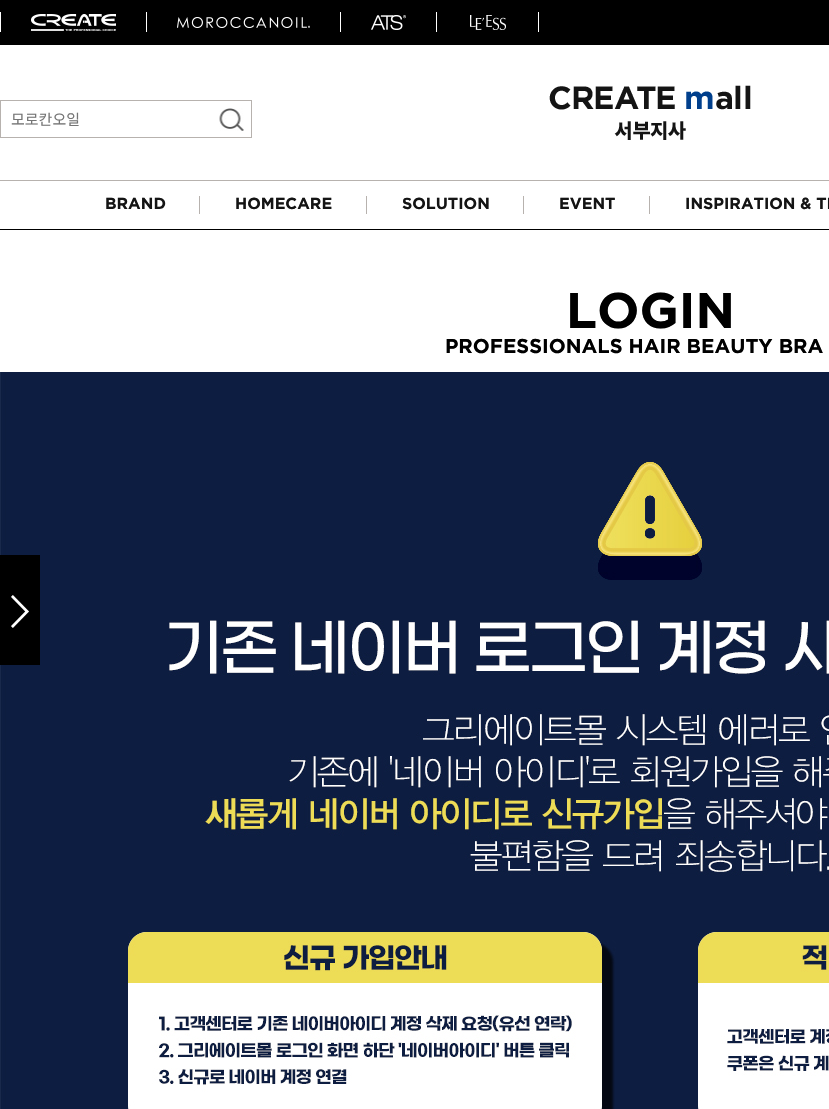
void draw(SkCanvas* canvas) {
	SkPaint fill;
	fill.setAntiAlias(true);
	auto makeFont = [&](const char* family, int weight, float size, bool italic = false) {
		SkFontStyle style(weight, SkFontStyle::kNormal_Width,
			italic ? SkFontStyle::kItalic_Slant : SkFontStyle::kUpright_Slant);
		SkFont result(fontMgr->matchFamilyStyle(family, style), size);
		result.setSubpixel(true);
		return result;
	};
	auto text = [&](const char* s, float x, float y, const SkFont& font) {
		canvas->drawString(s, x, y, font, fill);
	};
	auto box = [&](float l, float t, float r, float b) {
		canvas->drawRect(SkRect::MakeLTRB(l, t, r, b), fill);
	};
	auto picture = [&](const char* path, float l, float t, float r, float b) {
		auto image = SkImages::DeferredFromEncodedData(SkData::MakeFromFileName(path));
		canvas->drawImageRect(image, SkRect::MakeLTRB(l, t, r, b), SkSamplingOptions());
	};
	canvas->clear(0xFFFFFFFF);
	fill.setColor(0xFF000000);
	box(0, 0, 829, 45);
	fill.setColor(0xFFFFFFFF);
	box(0, 12, 1, 32);
	picture("image0.png", 31, 14, 116, 31);
	box(146, 12, 147, 32);
	picture("image1.png", 177, 17, 310, 28);
	box(340, 12, 341, 32);
	picture("image2.png", 371, 15, 406, 30);
	box(538, 12, 539, 32);
	box(436, 12, 437, 32);
	picture("image3.png", 470, 15, 506, 30);
	fill.setColor(0xFFB7B2AE);
	box(0, 100, 252, 101);
	box(0, 137, 212, 138);
	box(0, 100, 1, 138);
	picture("image4.png", 219, 108, 244, 131);
	box(251, 100, 252, 138);
	box(212, 137, 252, 138);
	picture("image5.png", 549, 85, 751, 140);
	box(0, 180, 829, 181);
	fill.setColor(0xFF000000);
	box(0, 229, 829, 230);
	fill.setColor(0xFFB7B2AE);
	box(199, 196, 200, 214);
	box(366, 196, 367, 214);
	box(523, 196, 524, 214);
	box(649, 196, 650, 214);
	picture("image6.png", 0, 372, 829, 1109);
	fill.setColor(0xFF000000);
	box(0, 555, 40, 665);
	picture("image7.png", 11, 595, 29, 628);
	auto font1 = makeFont("Noto Sans KR", 400, 15);
	fill.setColor(0xFF757575);
	text("모로칸오일", 11, 125, font1);
	auto font2 = makeFont("Gotham", 700, 16);
	fill.setColor(0xFF141414);
	text("BRAND", 105, 209, font2);
	text("HOMECARE", 235, 209, font2);
	text("SOLUTION", 402, 209, font2);
	text("EVENT", 559, 209, font2);
	text("INSPIRATION & TI", 685, 209, font2);
	auto font3 = makeFont("Gotham", 700, 50);
	fill.setColor(0xFF000000);
	text("LOGIN", 566, 328, font3);
	auto font4 = makeFont("Gotham", 700, 20);
	text("PROFESSIONALS HAIR BEAUTY BRA", 445, 353, font4);
}
